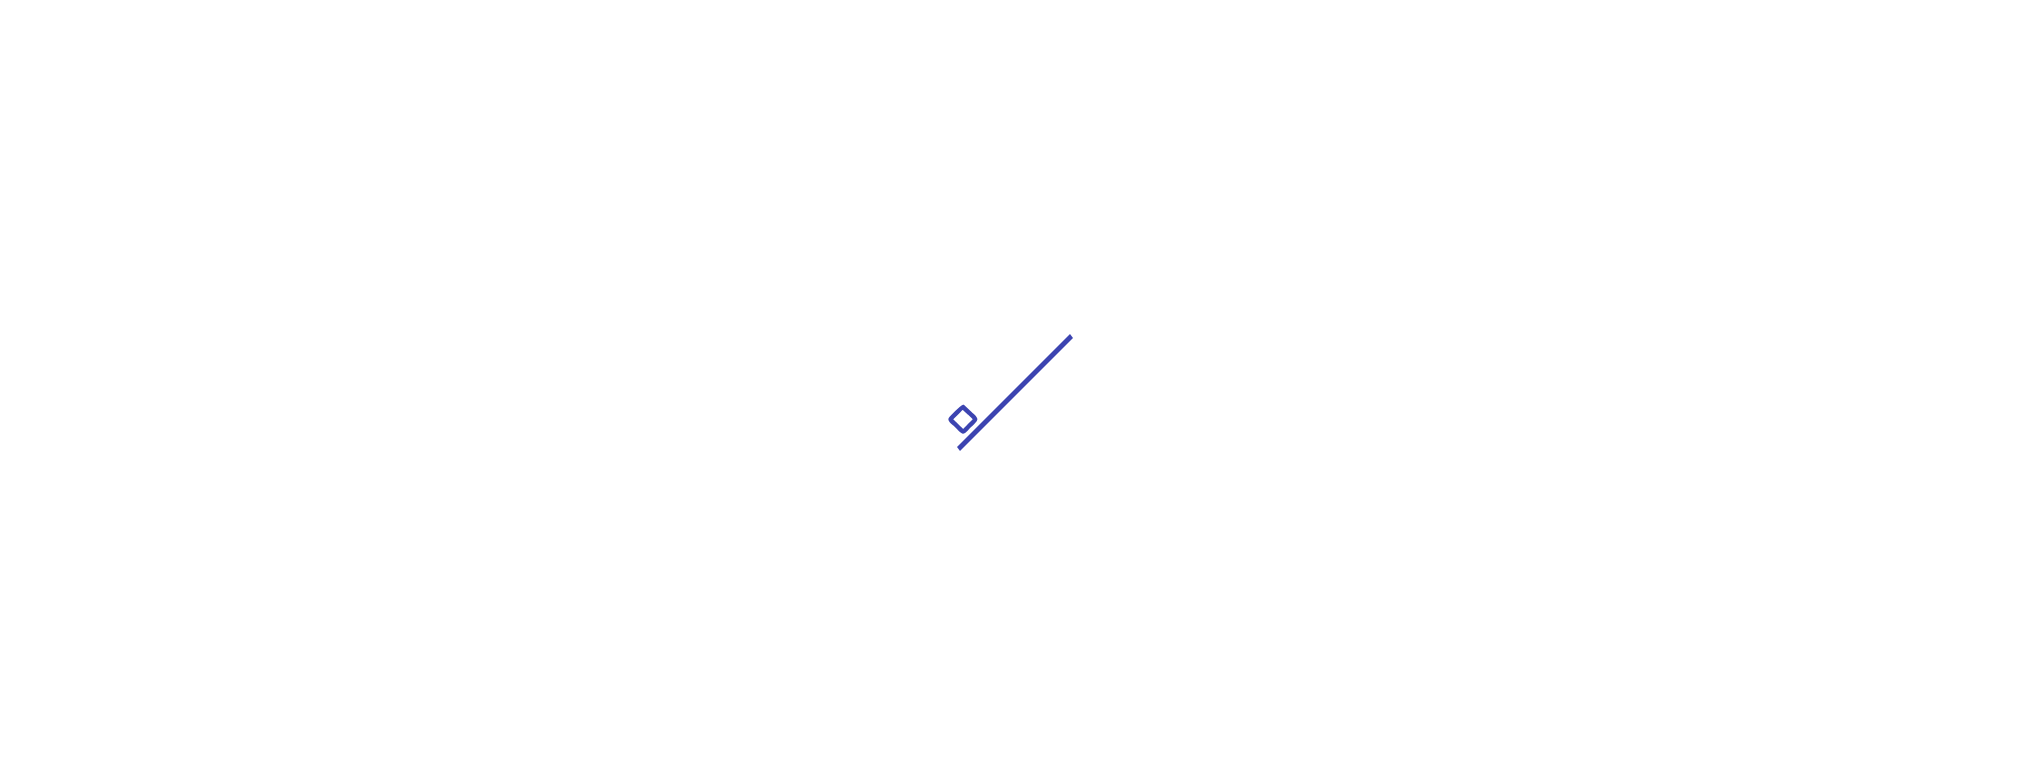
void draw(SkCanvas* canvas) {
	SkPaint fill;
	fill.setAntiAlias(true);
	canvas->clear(0xFFFFFFFF);
	fill.setStyle(SkPaint::kStroke_Style);
	fill.setStrokeWidth(4.5f);
	fill.setColor(0xFF3C44B1);
	canvas->drawPath(SkPathBuilder().moveTo(951, 418.5f).cubicTo(952.5f, 417, 962, 407, 963, 407).lineTo(969.5f, 413).cubicTo(977, 420.5f, 977, 418, 969.5f, 425.5f).cubicTo(962.5f, 432.5f, 964.5f, 433.5f, 958.5f, 427.5f).lineTo(955, 424).cubicTo(954, 423, 949.5f, 420, 951, 418.5f).close().detach(), fill);
	fill.setStyle(SkPaint::kFill_Style);
	canvas->drawPath(SkPathBuilder().moveTo(1070, 334).lineTo(1073, 338).lineTo(960, 451).lineTo(957, 447).close().detach(), fill);
}
